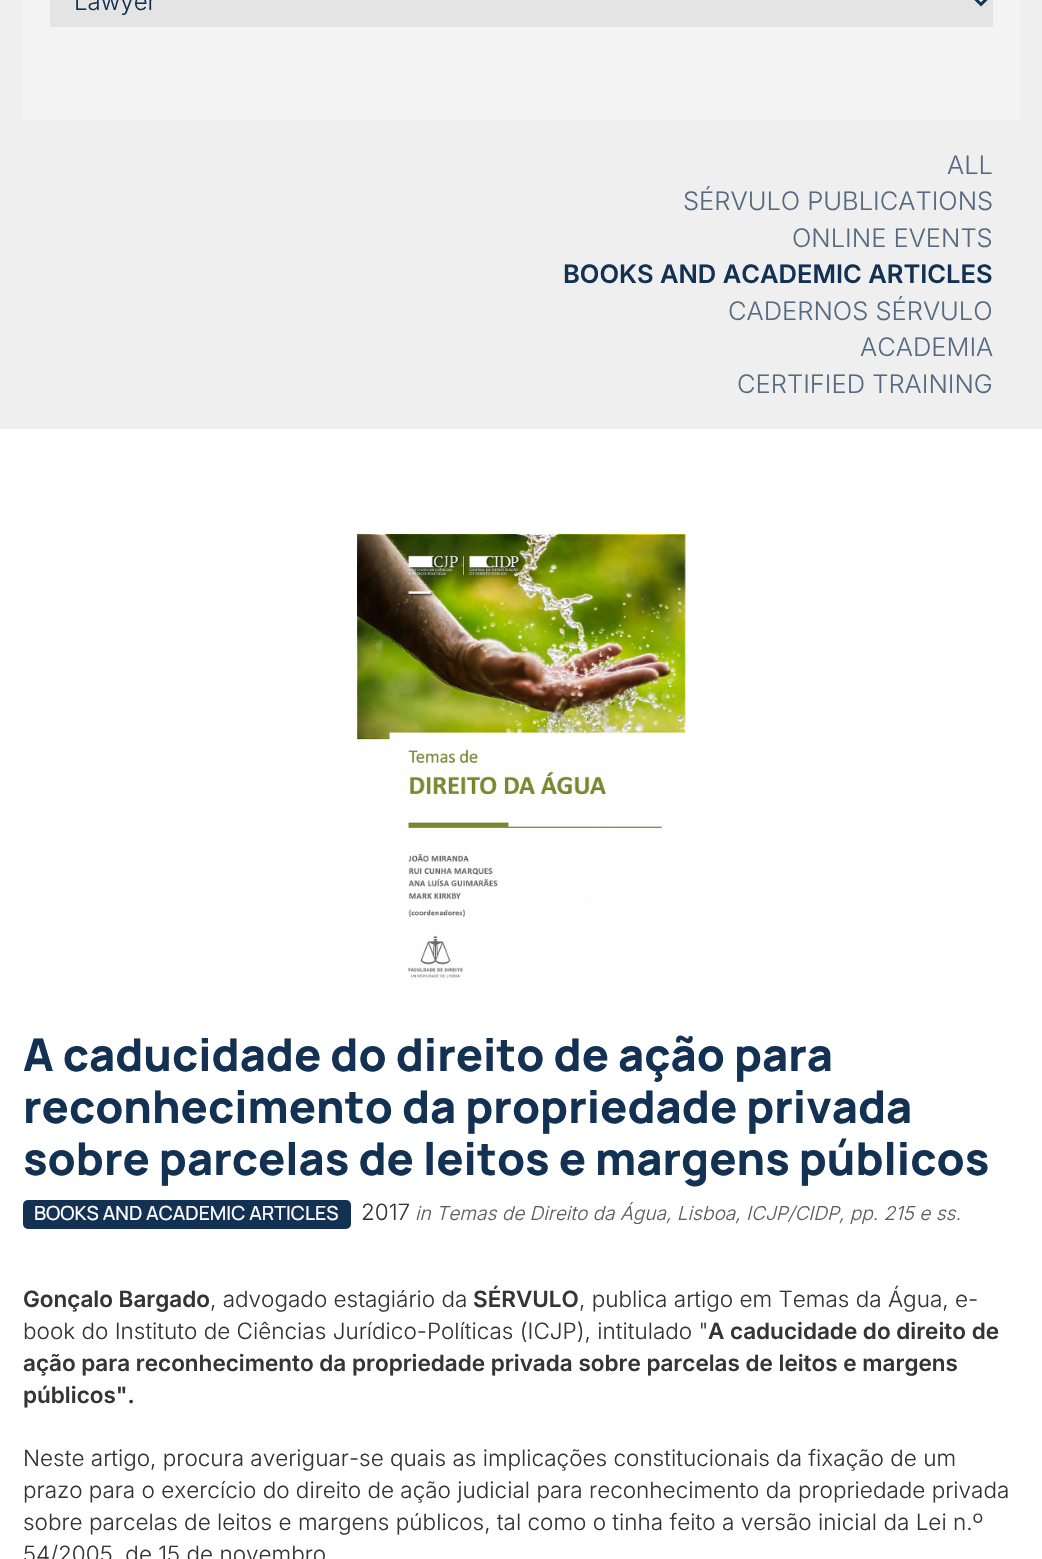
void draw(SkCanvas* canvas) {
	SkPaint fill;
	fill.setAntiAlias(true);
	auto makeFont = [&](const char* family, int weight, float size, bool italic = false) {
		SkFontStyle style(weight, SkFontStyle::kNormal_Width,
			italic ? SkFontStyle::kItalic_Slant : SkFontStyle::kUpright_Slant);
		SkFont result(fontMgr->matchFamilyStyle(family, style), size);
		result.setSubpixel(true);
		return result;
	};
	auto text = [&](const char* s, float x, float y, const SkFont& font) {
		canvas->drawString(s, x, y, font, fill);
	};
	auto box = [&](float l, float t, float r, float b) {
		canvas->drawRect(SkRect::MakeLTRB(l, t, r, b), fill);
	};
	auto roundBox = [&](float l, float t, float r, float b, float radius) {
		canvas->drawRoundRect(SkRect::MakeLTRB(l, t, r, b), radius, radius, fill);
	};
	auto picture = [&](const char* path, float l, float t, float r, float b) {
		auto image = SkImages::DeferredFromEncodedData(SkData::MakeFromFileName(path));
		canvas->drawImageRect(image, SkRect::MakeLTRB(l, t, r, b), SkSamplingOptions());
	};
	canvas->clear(0xFFFFFFFF);
	fill.setColor(0xFFEFEFEF);
	box(0, 0, 1042, 429);
	fill.setColor(0xFFF4F4F4);
	box(23, 0, 1020, 120);
	fill.setColor(0xFFE4E4E4);
	box(50, 0, 993, 27);
	fill.setStyle(SkPaint::kStroke_Style);
	fill.setStrokeWidth(3);
	fill.setColor(0xFF133152);
	canvas->drawPath(SkPathBuilder().moveTo(975, -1.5f).lineTo(981, 4.5f).lineTo(987, -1.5f).detach(), fill);
	picture("image0.png", 357, 534, 686, 978);
	fill.setStyle(SkPaint::kFill_Style);
	roundBox(23, 1200, 351, 1229, 5);
	auto font1 = makeFont("Inter", 300, 24);
	text("Lawyer", 74, 10, font1);
	auto font2 = makeFont("Inter", 300, 25.5f);
	fill.setColor(0xFF556A81);
	text("ALL", 947, 174, font2);
	text("SÉRVULO PUBLICATIONS", 683, 210, font2);
	text("ONLINE EVENTS", 792, 247, font2);
	auto font3 = makeFont("Inter", 600, 25.5f);
	fill.setColor(0xFF133152);
	text("BOOKS AND ACADEMIC ARTICLES", 563, 283, font3);
	fill.setColor(0xFF556A81);
	text("CADERNOS SÉRVULO", 728, 320, font2);
	text("ACADEMIA", 860, 356, font2);
	text("CERTIFIED TRAINING", 737, 393, font2);
	auto font4 = makeFont("Manrope", 800, 45);
	fill.setColor(0xFF133152);
	text("A caducidade do direito de ação para", 23, 1071, font4);
	text("reconhecimento da propriedade privada", 23, 1123, font4);
	text("sobre parcelas de leitos e margens públicos", 23, 1175, font4);
	auto font5 = makeFont("Manrope", 500, 19.5f);
	fill.setColor(0xFFFFFFFF);
	text("BOOKS AND ACADEMIC ARTICLES", 34, 1220, font5);
	auto font6 = makeFont("Inter", 300, 22.5f);
	fill.setColor(0xFF353535);
	text("2017", 361, 1220, font6);
	auto font7 = makeFont("Inter", 300, 19.1f, true);
	fill.setColor(0xFF5D5D5D);
	text("in Temas de Direito da Água, Lisboa, ICJP/CIDP, pp. 215 e ss.", 415, 1220, font7);
	auto font8 = makeFont("Inter", 600, 22.5f);
	fill.setColor(0xFF353535);
	text("Gonçalo Bargado", 23, 1307, font8);
	text(", advogado estagiário da", 210, 1307, font6);
	text("SÉRVULO", 473, 1307, font8);
	text(", publica artigo em Temas da Água, e-", 579, 1307, font6);
	text("book do Instituto de Ciências Jurídico-Políticas (ICJP), intitulado \"", 23, 1339, font6);
	text("A caducidade do direito de", 708, 1339, font8);
	text("ação para reconhecimento da propriedade privada sobre parcelas de leitos e margens", 23, 1371, font8);
	text("públicos\".", 23, 1403, font8);
	text("Neste artigo, procura averiguar-se quais as implicações constitucionais da fixação de um", 23, 1466, font6);
	text("prazo para o exercício do direito de ação judicial para reconhecimento da propriedade privada", 23, 1498, font6);
	text("sobre parcelas de leitos e margens públicos, tal como o tinha feito a versão inicial da Lei n.º", 23, 1530, font6);
	text("54/2005, de 15 de novembro", 23, 1562, font6);
}
